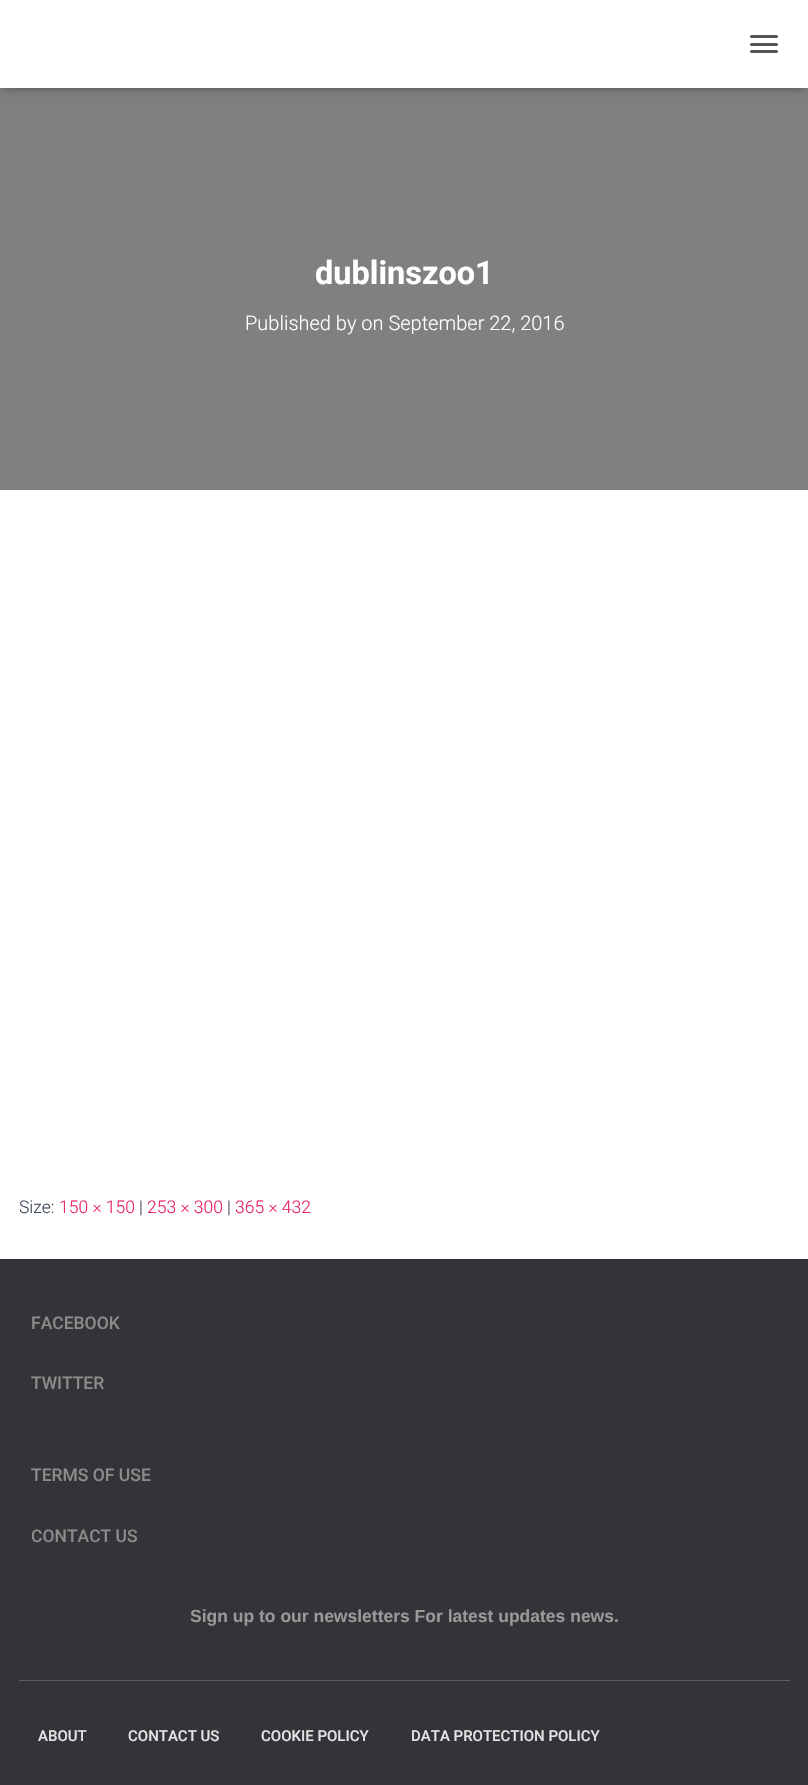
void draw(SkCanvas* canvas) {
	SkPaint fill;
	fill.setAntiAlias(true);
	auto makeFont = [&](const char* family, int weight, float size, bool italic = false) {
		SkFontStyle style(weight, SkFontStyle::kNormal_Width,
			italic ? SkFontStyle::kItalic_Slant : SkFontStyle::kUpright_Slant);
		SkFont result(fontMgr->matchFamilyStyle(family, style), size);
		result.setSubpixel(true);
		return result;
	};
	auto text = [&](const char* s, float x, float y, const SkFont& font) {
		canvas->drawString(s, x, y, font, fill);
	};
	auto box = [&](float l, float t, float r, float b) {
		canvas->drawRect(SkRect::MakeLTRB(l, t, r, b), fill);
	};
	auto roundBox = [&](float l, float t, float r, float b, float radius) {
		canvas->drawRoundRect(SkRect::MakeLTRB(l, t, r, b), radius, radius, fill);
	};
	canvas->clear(0xFFFFFFFF);
	fill.setColor(0xFF808080);
	box(0, 88, 808, 490);
	fill.setColor(0x1A000000);
	fill.setMaskFilter(SkMaskFilter::MakeBlur(kNormal_SkBlurStyle, 3));
	canvas->drawRect(SkRect::MakeLTRB(3, 8, 806, 90), fill);
	fill.setMaskFilter(nullptr);
	fill.setColor(0x1F000000);
	fill.setMaskFilter(SkMaskFilter::MakeBlur(kNormal_SkBlurStyle, 6));
	canvas->drawRect(SkRect::MakeLTRB(0, 1, 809, 89), fill);
	fill.setMaskFilter(nullptr);
	fill.setColor(0x6B000000);
	fill.setMaskFilter(SkMaskFilter::MakeBlur(kNormal_SkBlurStyle, 6));
	canvas->drawRect(SkRect::MakeLTRB(8, 9, 801, 81), fill);
	fill.setMaskFilter(nullptr);
	fill.setColor(0xFFFFFFFF);
	box(0, 0, 808, 88);
	fill.setColor(0xFF555555);
	roundBox(750, 35, 778, 38, 1.5f);
	roundBox(750, 43, 778, 46, 1.5f);
	roundBox(750, 50, 778, 53, 1.5f);
	fill.setColor(0xFF323437);
	box(0, 1259, 808, 1785);
	fill.setColor(0xFF5E5E5E);
	box(19, 1680, 790, 1681);
	auto font1 = makeFont("Roboto", 700, 32.5f);
	fill.setColor(0xFFFFFFFF);
	text("dublinszoo1", 315, 284, font1);
	auto font2 = makeFont("Roboto", 300, 20);
	text("Published by on September 22, 2016", 245, 330, font2);
	auto font3 = makeFont("Roboto", 300, 17.5f);
	fill.setColor(0xFF3C4858);
	text("Size:", 19, 1213, font3);
	fill.setColor(0xFFE91E63);
	text("150 × 150", 59, 1213, font3);
	fill.setColor(0xFF3C4858);
	text("|", 139, 1213, font3);
	fill.setColor(0xFFE91E63);
	text("253 × 300", 147, 1213, font3);
	fill.setColor(0xFF3C4858);
	text("|", 227, 1213, font3);
	fill.setColor(0xFFE91E63);
	text("365 × 432", 235, 1213, font3);
	auto font4 = makeFont("Roboto", 500, 17.5f);
	fill.setColor(0xFF8B8B8B);
	text("FACEBOOK", 31, 1329, font4);
	text("TWITTER", 31, 1389, font4);
	text("TERMS OF USE", 31, 1481, font4);
	text("CONTACT US", 31, 1542, font4);
	auto font5 = makeFont("Liberation Sans", 700, 17.5f);
	fill.setColor(0xFF999999);
	text("Sign up to our newsletters For latest updates news.", 190, 1622, font5);
	auto font6 = makeFont("Roboto", 500, 15);
	fill.setColor(0xFFE2E3E3);
	text("ABOUT", 38, 1741, font6);
	text("CONTACT US", 128, 1741, font6);
	text("COOKIE POLICY", 261, 1741, font6);
	text("DATA PROTECTION POLICY", 411, 1741, font6);
}
